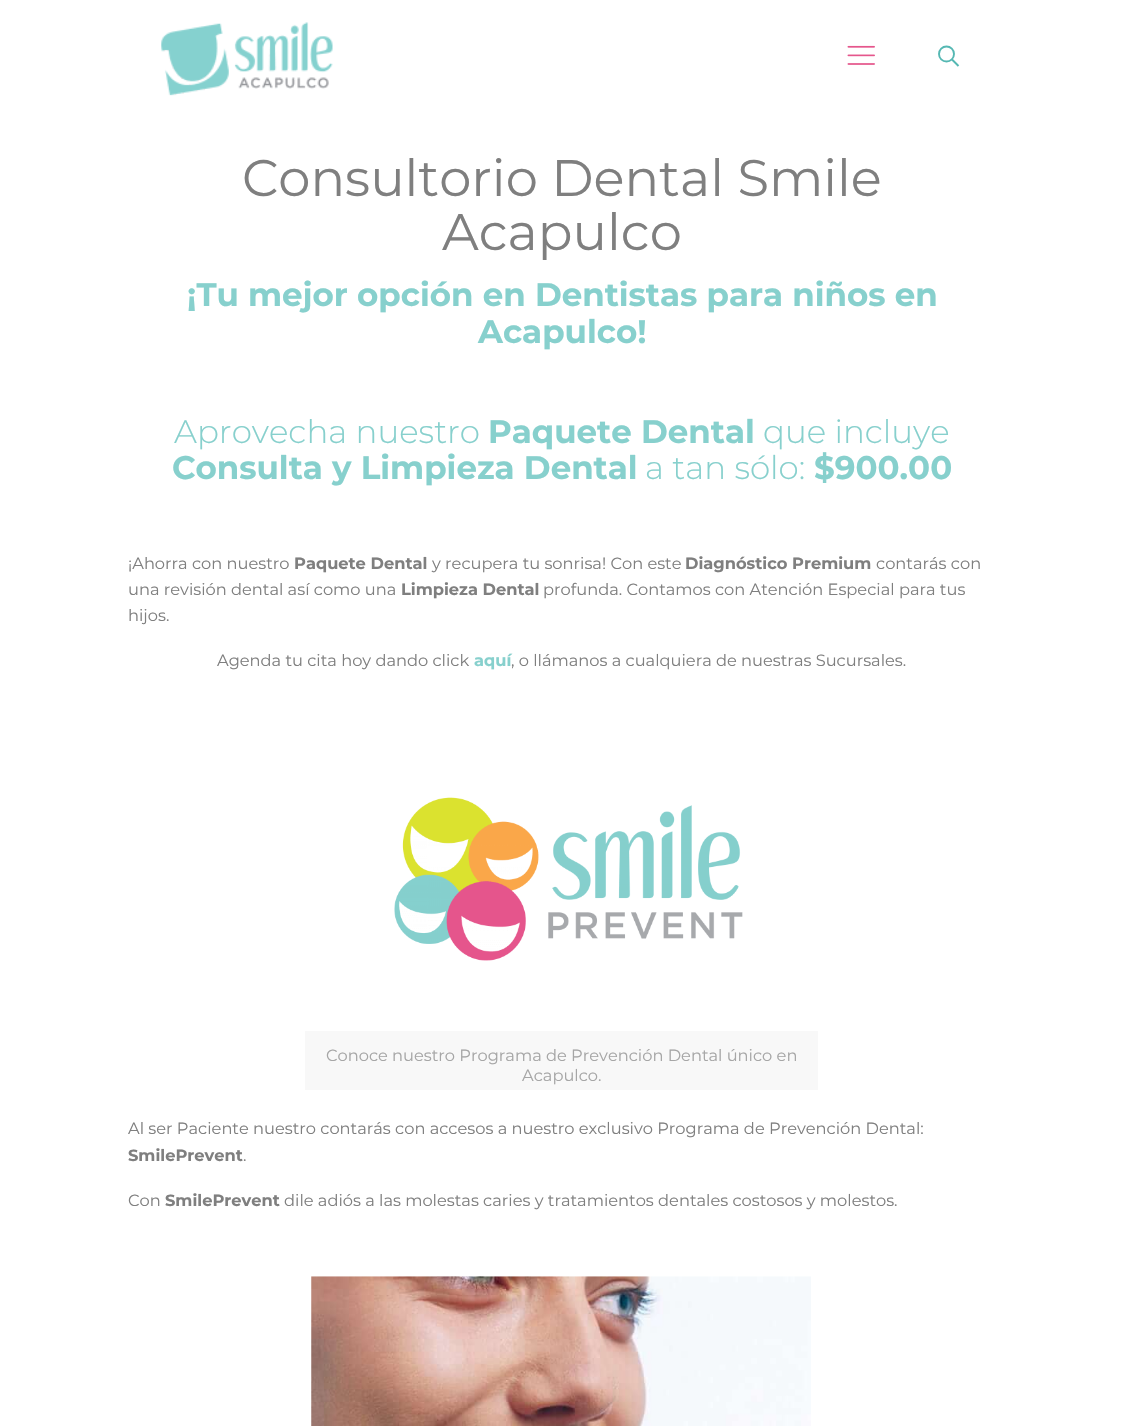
void draw(SkCanvas* canvas) {
	SkPaint fill;
	fill.setAntiAlias(true);
	auto makeFont = [&](const char* family, int weight, float size, bool italic = false) {
		SkFontStyle style(weight, SkFontStyle::kNormal_Width,
			italic ? SkFontStyle::kItalic_Slant : SkFontStyle::kUpright_Slant);
		SkFont result(fontMgr->matchFamilyStyle(family, style), size);
		result.setSubpixel(true);
		return result;
	};
	auto text = [&](const char* s, float x, float y, const SkFont& font) {
		canvas->drawString(s, x, y, font, fill);
	};
	auto box = [&](float l, float t, float r, float b) {
		canvas->drawRect(SkRect::MakeLTRB(l, t, r, b), fill);
	};
	auto picture = [&](const char* path, float l, float t, float r, float b) {
		auto image = SkImages::DeferredFromEncodedData(SkData::MakeFromFileName(path));
		canvas->drawImageRect(image, SkRect::MakeLTRB(l, t, r, b), SkSamplingOptions());
	};
	canvas->clear(0xFFFFFFFF);
	picture("image0.png", 161, 22, 333, 96);
	picture("image1.png", 847, 45, 875, 65);
	fill.setStyle(SkPaint::kStroke_Style);
	fill.setStrokeWidth(1.9f);
	fill.setColor(0xFF55B8B3);
	canvas->drawCircle(946.5f, 54, 7.5f, fill);
	canvas->drawPath(SkPathBuilder().moveTo(952, 59.5f).lineTo(958.5f, 66).detach(), fill);
	picture("image2.png", 394, 797, 743, 961);
	fill.setStyle(SkPaint::kFill_Style);
	fill.setColor(0xFFF8F8F8);
	box(305, 1031, 818, 1090);
	picture("image3.png", 311, 1276, 811, 1426);
	auto font1 = makeFont("Montserrat", 400, 51.25f);
	fill.setColor(0xFF7F7F7F);
	text("Consultorio Dental Smile", 242, 196, font1);
	text("Acapulco", 442, 250, font1);
	auto font2 = makeFont("Montserrat", 700, 32.5f);
	fill.setColor(0xFF87D0CD);
	text("¡Tu mejor opción en Dentistas para niños en", 187, 306, font2);
	text("Acapulco!", 478, 343, font2);
	auto font3 = makeFont("Montserrat", 300, 32.5f);
	text("Aprovecha nuestro", 174, 443, font3);
	text("Paquete Dental", 488, 443, font2);
	text("que incluye", 763, 443, font3);
	text("Consulta y Limpieza Dental", 172, 479, font2);
	text("a tan sólo:", 645, 479, font3);
	text("$900.00", 814, 479, font2);
	auto font4 = makeFont("Montserrat", 400, 16.25f);
	fill.setColor(0xFF7F7F7F);
	text("¡Ahorra con nuestro", 128, 569, font4);
	auto font5 = makeFont("Montserrat", 700, 16.25f);
	text("Paquete Dental", 294, 569, font5);
	text("y recupera tu sonrisa! Con este", 432, 569, font4);
	text("Diagnóstico Premium", 685, 569, font5);
	text("contarás con", 876, 569, font4);
	text("una revisión dental así como una", 128, 595, font4);
	text("Limpieza Dental", 401, 595, font5);
	text("profunda. Contamos con Atención Especial para tus", 543, 595, font4);
	text("hijos.", 128, 621, font4);
	text("Agenda tu cita hoy dando click", 217, 666, font4);
	fill.setColor(0xFF87D0CD);
	text("aquí", 474, 666, font5);
	fill.setColor(0xFF7F7F7F);
	text(", o llámanos a cualquiera de nuestras Sucursales.", 511, 666, font4);
	fill.setColor(0xFFA6A6A6);
	text("Conoce nuestro Programa de Prevención Dental único en", 326, 1061, font4);
	text("Acapulco.", 522, 1081, font4);
	fill.setColor(0xFF7F7F7F);
	text("Al ser Paciente nuestro contarás con accesos a nuestro exclusivo Programa de Prevención Dental:", 128, 1134, font4);
	text("SmilePrevent", 128, 1161, font5);
	text(".", 243, 1161, font4);
	text("Con", 128, 1206, font4);
	text("SmilePrevent", 165, 1206, font5);
	text("dile adiós a las molestas caries y tratamientos dentales costosos y molestos.", 284, 1206, font4);
}
